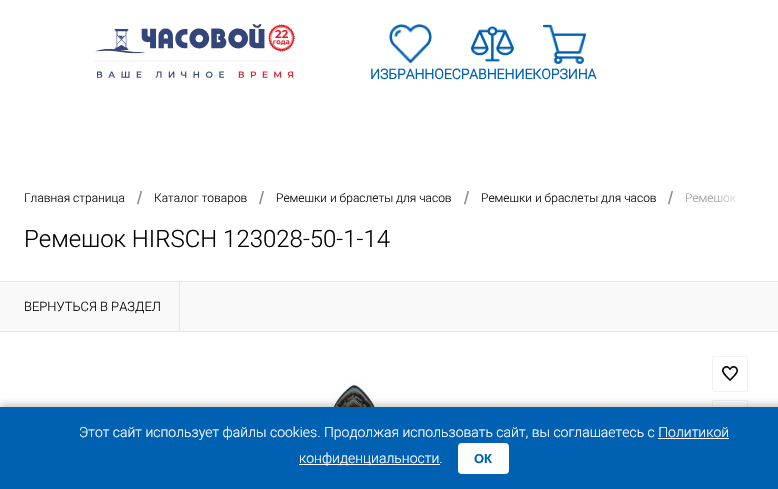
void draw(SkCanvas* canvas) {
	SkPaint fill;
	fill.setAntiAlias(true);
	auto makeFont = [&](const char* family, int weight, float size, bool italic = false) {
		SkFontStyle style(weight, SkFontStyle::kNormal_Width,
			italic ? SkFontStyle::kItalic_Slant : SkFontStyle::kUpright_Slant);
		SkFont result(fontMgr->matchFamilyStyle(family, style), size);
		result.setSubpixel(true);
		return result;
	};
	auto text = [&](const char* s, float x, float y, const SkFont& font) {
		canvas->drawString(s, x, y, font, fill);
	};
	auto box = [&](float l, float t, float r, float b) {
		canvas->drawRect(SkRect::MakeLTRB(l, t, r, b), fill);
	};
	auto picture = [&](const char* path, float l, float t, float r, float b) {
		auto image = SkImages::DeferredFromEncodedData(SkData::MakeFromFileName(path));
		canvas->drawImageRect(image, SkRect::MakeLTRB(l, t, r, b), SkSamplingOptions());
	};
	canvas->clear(0xFFFFFFFF);
	picture("image0.png", 95, 24, 295, 78);
	picture("image1.png", 471, 25, 514, 63);
	picture("image2.png", 543, 24, 586, 64);
	picture("image3.png", 389, 24, 432, 64);
	fill.setColor(0xFFE7E8EA);
	box(0, 281, 778, 282);
	fill.setColor(0xFFF9F9F9);
	box(0, 282, 778, 331);
	fill.setColor(0xFFE7E8EA);
	box(0, 331, 778, 332);
	box(179, 282, 180, 331);
	picture("image4.png", 323, 380, 382, 407);
	fill.setStyle(SkPaint::kStroke_Style);
	fill.setStrokeWidth(1);
	fill.setColor(0xFFF1F1F1);
	canvas->drawRoundRect(SkRect::MakeLTRB(712.5f, 356.5f, 747.5f, 391.5f), 1.5f, 1.5f, fill);
	picture("image5.png", 722, 366, 738, 381);
	canvas->drawRoundRect(SkRect::MakeLTRB(712.5f, 400.5f, 747.5f, 435.5f), 1.5f, 1.5f, fill);
	fill.setStyle(SkPaint::kFill_Style);
	fill.setColor(0x40000000);
	fill.setMaskFilter(SkMaskFilter::MakeBlur(kNormal_SkBlurStyle, 4));
	canvas->drawRect(SkRect::MakeLTRB(0, 405, 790, 487), fill);
	fill.setMaskFilter(nullptr);
	fill.setColor(0xFF0061B2);
	box(0, 407, 778, 489);
	fill.setColor(0xFFFFFFFF);
	box(658, 438, 729, 439);
	box(299, 464, 440, 465);
	canvas->drawRoundRect(SkRect::MakeLTRB(459, 444, 508, 473), 3, 3, fill);
	fill.setStyle(SkPaint::kStroke_Style);
	fill.setStrokeWidth(2);
	canvas->drawRoundRect(SkRect::MakeLTRB(459, 444, 508, 473), 3, 3, fill);
	auto font1 = makeFont("Roboto", 700, 14);
	fill.setStyle(SkPaint::kFill_Style);
	fill.setColor(0xFF0061B2);
	text("ИЗБРАННОЕСРАВНЕНИЕКОРЗИНА", 370, 79, font1);
	auto font2 = makeFont("Roboto", 300, 12);
	fill.setColor(0xFF000000);
	text("Главная страница", 24, 202, font2);
	auto font3 = makeFont("Liberation Sans", 400, 18);
	fill.setColor(0xFF888888);
	text("/", 137, 204, font3);
	fill.setColor(0xFF000000);
	text("Каталог товаров", 154, 202, font2);
	fill.setColor(0xFF888888);
	text("/", 259, 204, font3);
	fill.setColor(0xFF000000);
	text("Ремешки и браслеты для часов", 276, 202, font2);
	fill.setColor(0xFF888888);
	text("/", 464, 204, font3);
	fill.setColor(0xFF000000);
	text("Ремешки и браслеты для часов", 481, 202, font2);
	fill.setColor(0xFF888888);
	text("/", 668, 204, font3);
	fill.setColor(0xFF999999);
	text("Ремешок", 685, 202, font2);
	{
		const SkColor colors[] = {0x33FFFFFF, 0xFFFFFFFF};
		const float stops[] = {0, 1};
		const SkPoint ends[] = {{719, 199}, {754, 199}};
		fill.setShader(SkGradientShader::MakeLinear(ends, colors, stops, 2, SkTileMode::kClamp));
		fill.setAlpha(255);
	}
	box(719, 195, 737, 202);
	auto font4 = makeFont("Roboto", 300, 24);
	fill.setShader(nullptr);
	fill.setColor(0xFF000000);
	text("Ремешок HIRSCH 123028-50-1-14", 24, 247, font4);
	auto font5 = makeFont("Roboto", 300, 13);
	text("ВЕРНУТЬСЯ В РАЗДЕЛ", 24, 311, font5);
	auto font6 = makeFont("Roboto", 300, 14);
	fill.setColor(0xFFFFFFFF);
	text("Этот сайт использует файлы cookies. Продолжая использовать сайт, вы соглашаетесь с Политикой", 79, 437, font6);
	text("конфиденциальности.", 299, 463, font6);
	auto font7 = makeFont("Liberation Sans", 700, 13);
	fill.setColor(0xFF0061B2);
	text("ОК", 474, 463, font7);
}
